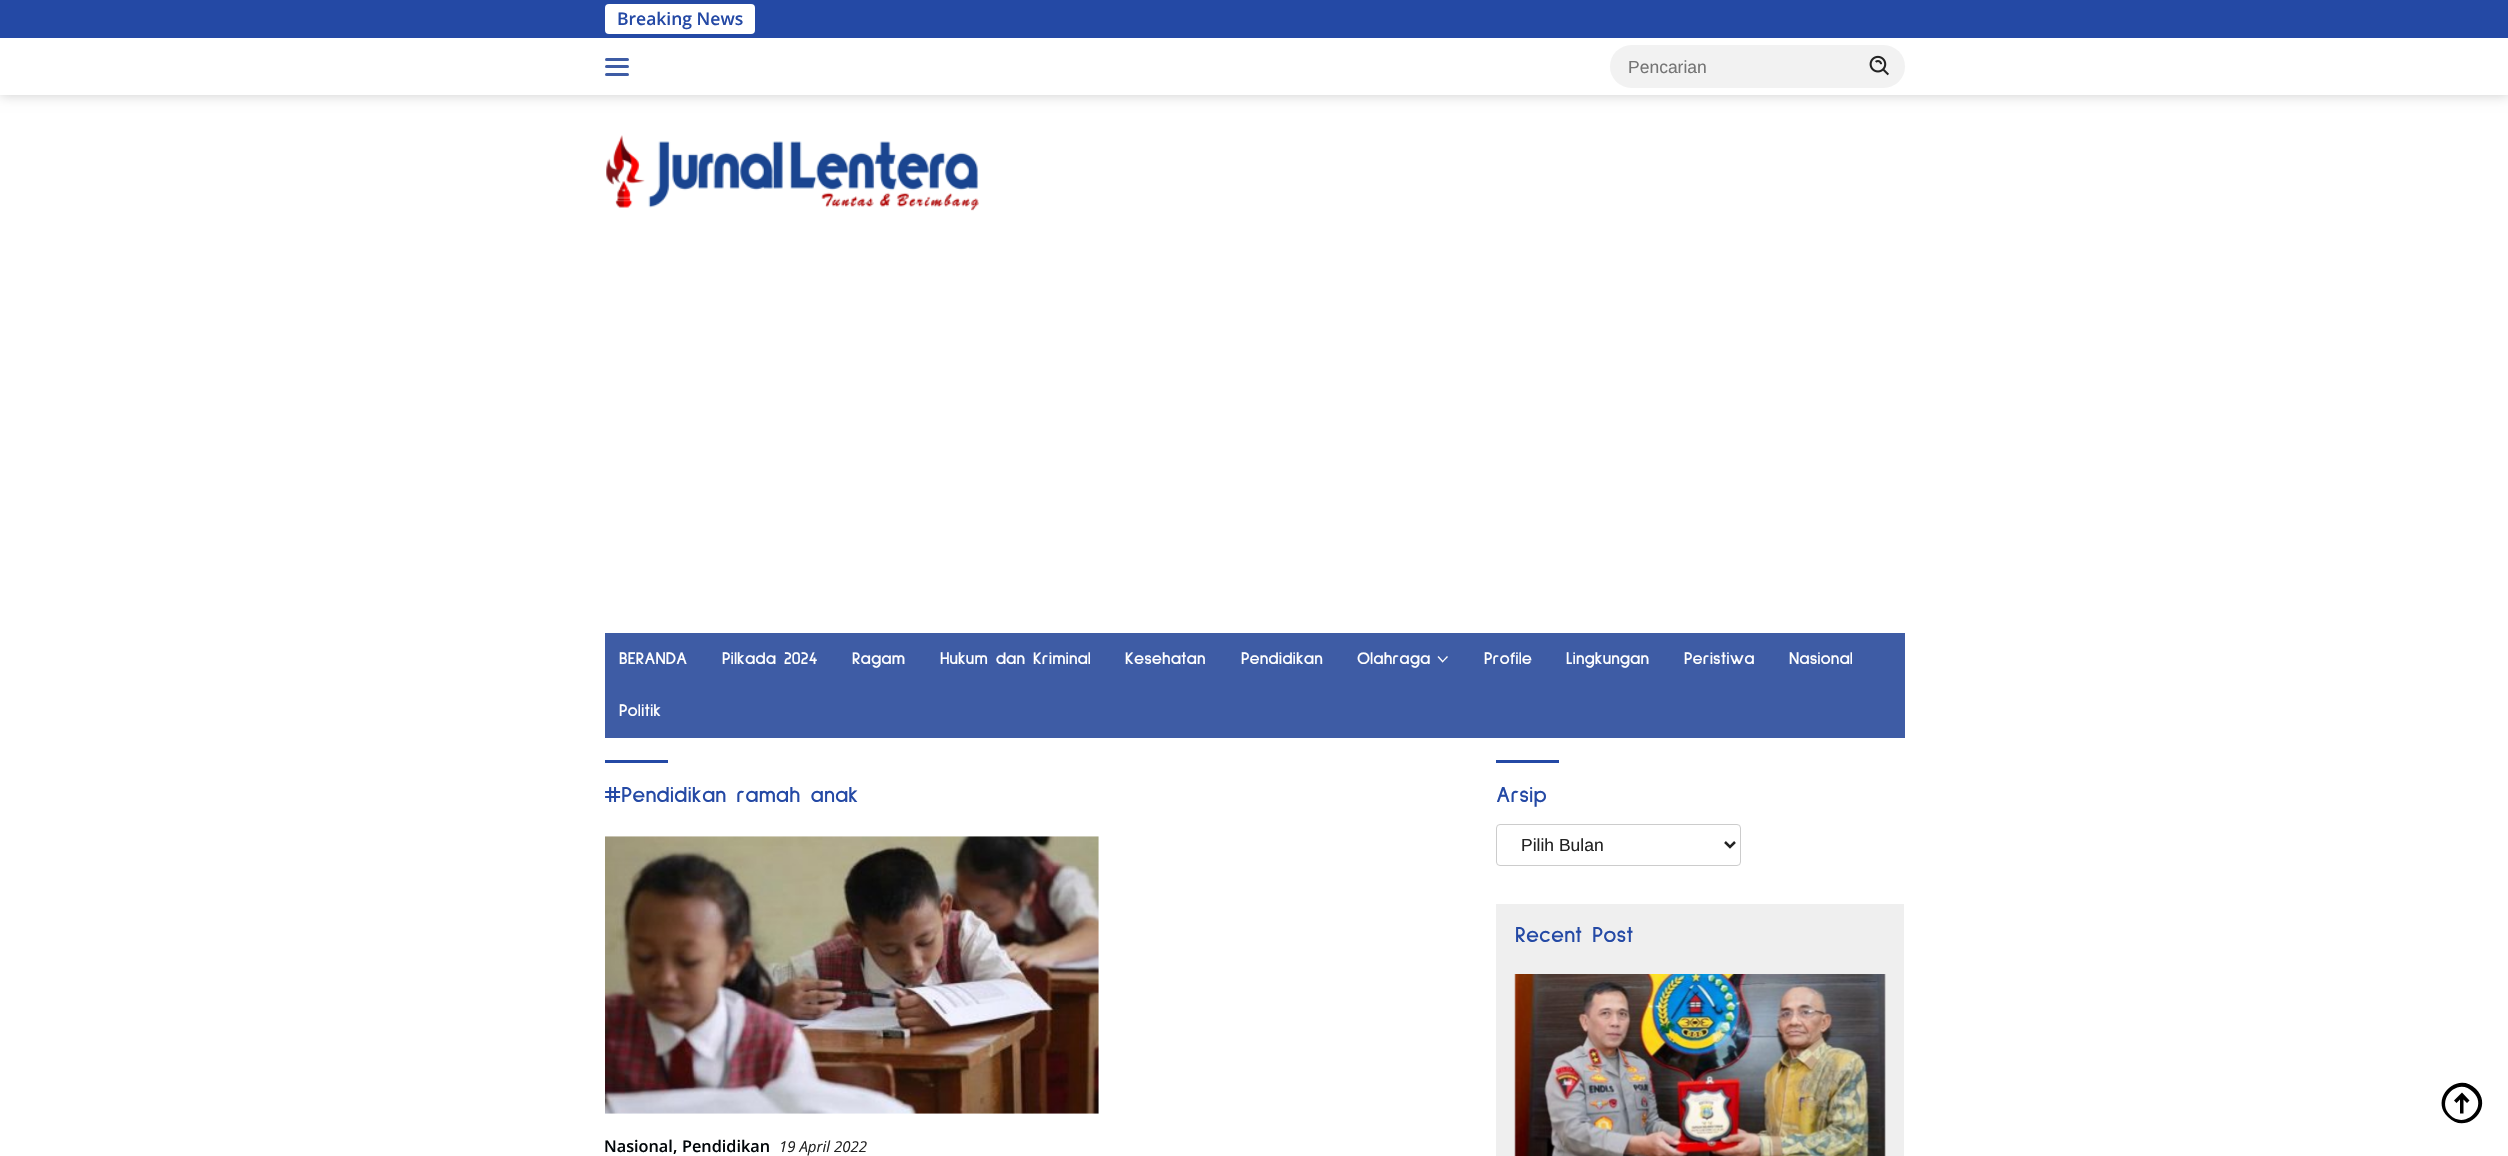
void draw(SkCanvas* canvas) {
	SkPaint fill;
	fill.setAntiAlias(true);
	auto makeFont = [&](const char* family, int weight, float size, bool italic = false) {
		SkFontStyle style(weight, SkFontStyle::kNormal_Width,
			italic ? SkFontStyle::kItalic_Slant : SkFontStyle::kUpright_Slant);
		SkFont result(fontMgr->matchFamilyStyle(family, style), size);
		result.setSubpixel(true);
		return result;
	};
	auto text = [&](const char* s, float x, float y, const SkFont& font) {
		canvas->drawString(s, x, y, font, fill);
	};
	auto box = [&](float l, float t, float r, float b) {
		canvas->drawRect(SkRect::MakeLTRB(l, t, r, b), fill);
	};
	auto roundBox = [&](float l, float t, float r, float b, float radius) {
		canvas->drawRoundRect(SkRect::MakeLTRB(l, t, r, b), radius, radius, fill);
	};
	auto picture = [&](const char* path, float l, float t, float r, float b) {
		auto image = SkImages::DeferredFromEncodedData(SkData::MakeFromFileName(path));
		canvas->drawImageRect(image, SkRect::MakeLTRB(l, t, r, b), SkSamplingOptions());
	};
	canvas->clear(0xFFFFFFFF);
	fill.setColor(0x33000000);
	fill.setMaskFilter(SkMaskFilter::MakeBlur(kNormal_SkBlurStyle, 6));
	canvas->drawRect(SkRect::MakeLTRB(0, 0, 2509, 95), fill);
	fill.setMaskFilter(nullptr);
	fill.setColor(0xFFFFFFFF);
	box(0, 38, 2508, 95);
	fill.setColor(0xFF2449A5);
	box(0, 0, 2508, 38);
	fill.setColor(0xFFFFFFFF);
	roundBox(605, 4, 755, 34, 4);
	fill.setColor(0xFF3E5CA5);
	roundBox(605, 58, 629, 61, 1.5f);
	roundBox(605, 65, 629, 68, 1.5f);
	roundBox(605, 73, 629, 76, 1.5f);
	fill.setColor(0xFFF2F2F2);
	roundBox(1610, 45, 1905, 88, 21.5f);
	picture("image0.png", 1869, 55, 1889, 76);
	picture("image1.png", 606, 135, 979, 211);
	fill.setColor(0xFF3E5CA5);
	box(605, 633, 1905, 738);
	fill.setColor(0xFFFFFFFF);
	canvas->drawPath(SkPathBuilder().moveTo(1447, 656).lineTo(1448, 657).lineTo(1442.5f, 662.5f).lineTo(1442, 661.5f).close().detach(), fill);
	canvas->drawPath(SkPathBuilder().moveTo(1438.5f, 656).lineTo(1443.5f, 661.5f).lineTo(1442.5f, 662.5f).lineTo(1437.5f, 657).close().detach(), fill);
	fill.setColor(0xFF2449A5);
	box(605, 760, 668, 763);
	picture("image2.png", 605, 836, 1099, 1114);
	box(1496, 760, 1559, 763);
	fill.setStyle(SkPaint::kStroke_Style);
	fill.setStrokeWidth(1);
	fill.setColor(0xFFCCCCCC);
	canvas->drawRoundRect(SkRect::MakeLTRB(1496.5f, 824.5f, 1740.5f, 865.5f), 3.5f, 3.5f, fill);
	fill.setStrokeWidth(2.5f);
	fill.setColor(0xFF232323);
	canvas->drawPath(SkPathBuilder().moveTo(1725, 842).lineTo(1730, 847).lineTo(1735, 842).detach(), fill);
	fill.setStyle(SkPaint::kFill_Style);
	fill.setColor(0xFFEFEFEF);
	box(1496, 904, 1904, 1156);
	picture("image3.png", 1514, 974, 1886, 1156);
	fill.setColor(0xFF000000);
	canvas->drawPath(SkPathBuilder().moveTo(2467, 1103).lineTo(2469.5f, 1100.5f).lineTo(2462, 1092.5f).lineTo(2454, 1100.5f).lineTo(2456.5f, 1103).lineTo(2460, 1099.5f).lineTo(2460, 1113.5f).lineTo(2463.5f, 1113.5f).lineTo(2463.5f, 1099.5f).close().detach(), fill);
	canvas->drawPath(SkPathBuilder(SkPathFillType::kEvenOdd).moveTo(2476, 1089).cubicTo(2457, 1070, 2429, 1099, 2448, 1117).cubicTo(2466, 1136, 2495, 1108, 2476, 1089).close().moveTo(2473, 1092).cubicTo(2458, 1076, 2435, 1100, 2450, 1115).cubicTo(2465, 1130, 2489, 1107, 2473, 1092).close().detach(), fill);
	auto font1 = makeFont("Open Sans", 600, 17.5f);
	fill.setColor(0xFF2449A5);
	text("Breaking News", 617, 25, font1);
	auto font2 = makeFont("Liberation Sans", 400, 17.5f);
	fill.setColor(0xFF757575);
	text("Pencarian", 1628, 73, font2);
	auto font3 = makeFont("Sulphur Point", 700, 17.5f);
	fill.setColor(0xFFFFFFFF);
	text("BERANDA", 619, 664, font3);
	text("Pilkada 2024", 722, 664, font3);
	text("Ragam", 852, 664, font3);
	text("Hukum dan Kriminal", 940, 664, font3);
	text("Kesehatan", 1125, 664, font3);
	text("Pendidikan", 1241, 664, font3);
	text("Olahraga", 1357, 664, font3);
	text("Profile", 1484, 664, font3);
	text("Lingkungan", 1566, 664, font3);
	text("Peristiwa", 1684, 664, font3);
	text("Nasional", 1789, 664, font3);
	text("Politik", 619, 716, font3);
	auto font4 = makeFont("Sulphur Point", 700, 22.5f);
	fill.setColor(0xFF2449A5);
	text("#Pendidikan ramah anak", 604, 802, font4);
	auto font5 = makeFont("Open Sans", 600, 16.25f);
	fill.setColor(0xFF02070A);
	text("Nasional", 604, 1152, font5);
	fill.setColor(0xFF000000);
	text(",", 673, 1152, font5);
	fill.setColor(0xFF02070A);
	text("Pendidikan", 682, 1152, font5);
	auto font6 = makeFont("Open Sans", 400, 15, true);
	fill.setColor(0xFF232323);
	text("19 April 2022", 779, 1152, font6);
	fill.setColor(0xFF2449A5);
	text("Arsip", 1496, 802, font4);
	fill.setColor(0xFF232323);
	text("Pilih Bulan", 1521, 851, font2);
	fill.setColor(0xFF2449A5);
	text("Recent Post", 1515, 942, font4);
}
